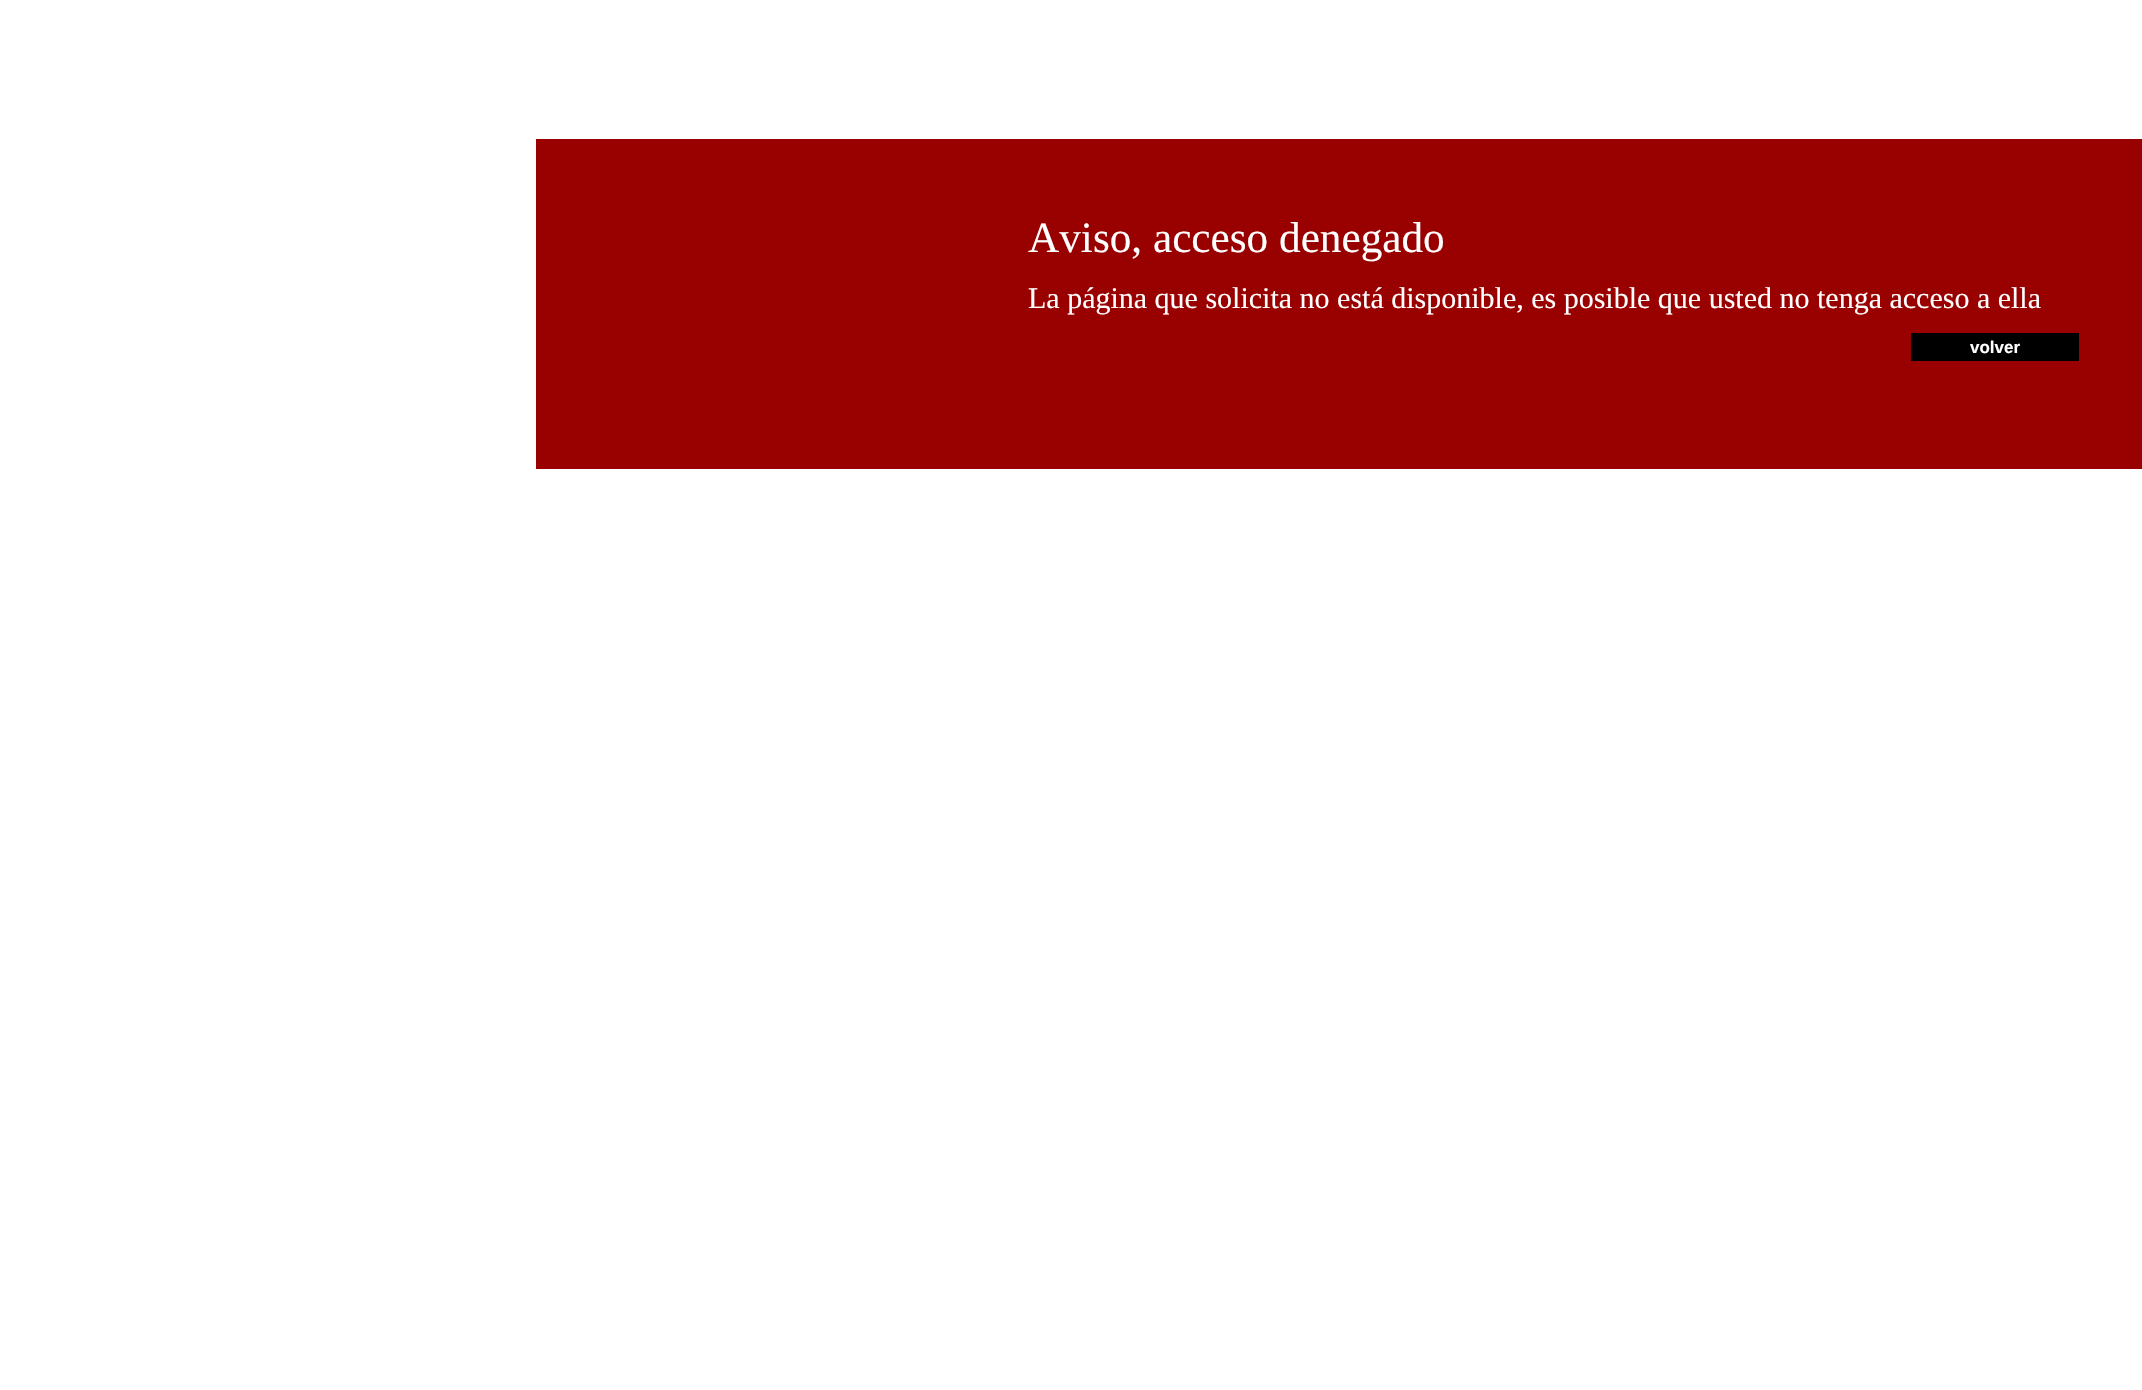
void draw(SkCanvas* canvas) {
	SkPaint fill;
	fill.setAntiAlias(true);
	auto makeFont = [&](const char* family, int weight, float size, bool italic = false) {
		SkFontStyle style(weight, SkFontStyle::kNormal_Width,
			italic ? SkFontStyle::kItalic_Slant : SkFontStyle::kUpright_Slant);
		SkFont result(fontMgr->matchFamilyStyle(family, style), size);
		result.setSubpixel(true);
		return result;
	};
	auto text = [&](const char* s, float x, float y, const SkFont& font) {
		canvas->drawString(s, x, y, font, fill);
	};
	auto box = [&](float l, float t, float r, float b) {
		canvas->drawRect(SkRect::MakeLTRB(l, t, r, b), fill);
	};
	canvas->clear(0xFFFFFFFF);
	fill.setColor(0xFF990000);
	box(536, 139, 2142, 469);
	fill.setColor(0xFF000000);
	box(1911, 333, 2079, 361);
	auto font1 = makeFont("Liberation Serif", 400, 43.25f);
	fill.setColor(0xFFFFFFFF);
	text("Aviso, acceso denegado", 1028, 252, font1);
	auto font2 = makeFont("Liberation Serif", 400, 30);
	text("La página que solicita no está disponible, es posible que usted no tenga acceso a ella", 1028, 308, font2);
	auto font3 = makeFont("Liberation Sans", 700, 17);
	text("volver", 1970, 353, font3);
}
